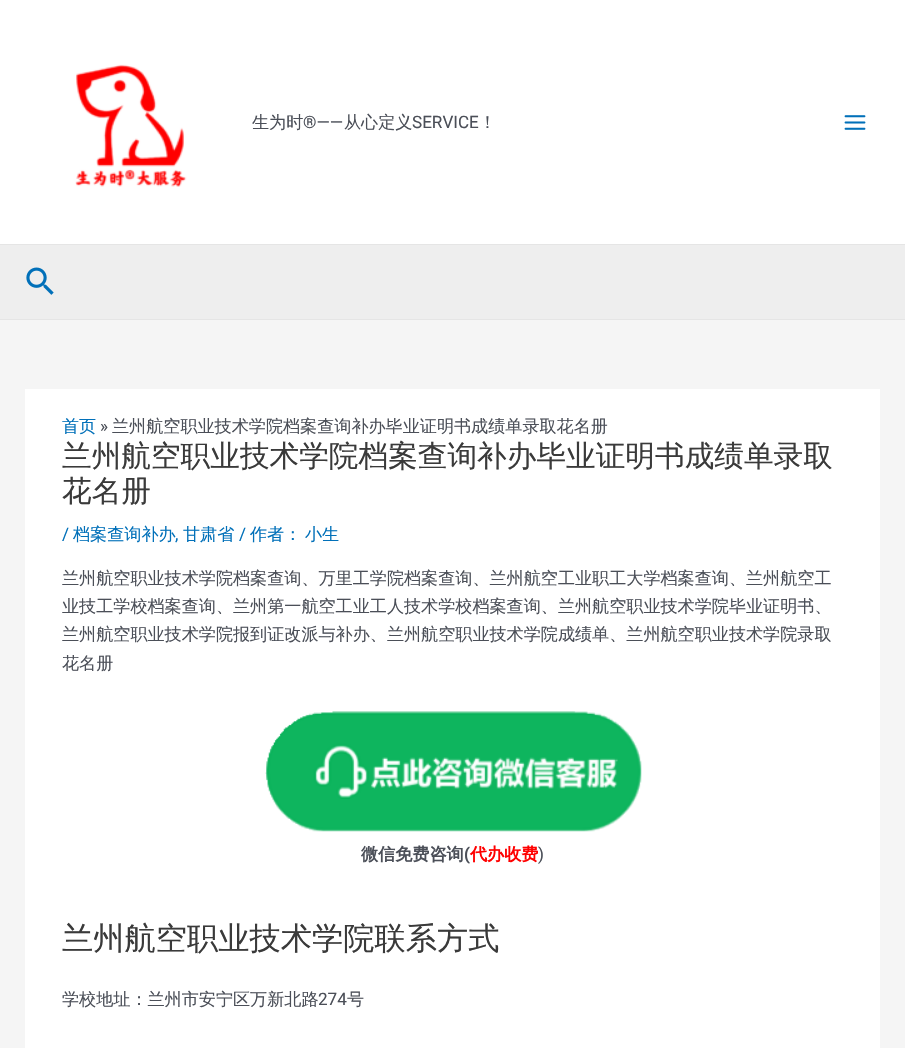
void draw(SkCanvas* canvas) {
	SkPaint fill;
	fill.setAntiAlias(true);
	auto makeFont = [&](const char* family, int weight, float size, bool italic = false) {
		SkFontStyle style(weight, SkFontStyle::kNormal_Width,
			italic ? SkFontStyle::kItalic_Slant : SkFontStyle::kUpright_Slant);
		SkFont result(fontMgr->matchFamilyStyle(family, style), size);
		result.setSubpixel(true);
		return result;
	};
	auto text = [&](const char* s, float x, float y, const SkFont& font) {
		canvas->drawString(s, x, y, font, fill);
	};
	auto box = [&](float l, float t, float r, float b) {
		canvas->drawRect(SkRect::MakeLTRB(l, t, r, b), fill);
	};
	auto picture = [&](const char* path, float l, float t, float r, float b) {
		auto image = SkImages::DeferredFromEncodedData(SkData::MakeFromFileName(path));
		canvas->drawImageRect(image, SkRect::MakeLTRB(l, t, r, b), SkSamplingOptions());
	};
	canvas->clear(0xFFF5F5F5);
	fill.setColor(0xFFFFFFFF);
	box(0, 0, 905, 244);
	fill.setColor(0xFFE5E5E5);
	box(0, 244, 905, 245);
	picture("image0.png", 75, 64, 187, 187);
	picture("image1.png", 844, 115, 866, 130);
	fill.setColor(0xFFEEEEEE);
	box(0, 245, 905, 319);
	fill.setColor(0xFFE5E5E5);
	box(0, 319, 905, 320);
	picture("image2.png", 26, 267, 54, 295);
	fill.setColor(0xFFFFFFFF);
	box(25, 389, 880, 1048);
	picture("image3.png", 265, 711, 642, 832);
	auto font1 = makeFont("WenQuanYi Zen Hei", 500, 17.1f);
	fill.setColor(0xFF4B4F58);
	text("生为时", 252, 128, font1);
	auto font2 = makeFont("Roboto", 400, 17.1f);
	text("®——", 303, 128, font2);
	text("从心定义", 344, 128, font1);
	text("SERVICE", 412, 128, font2);
	text("！", 479, 128, font1);
	fill.setColor(0xFF0170B9);
	text("首页", 62, 432, font1);
	fill.setColor(0xFF4B4F58);
	text("»", 100, 432, font2);
	text("兰州航空职业技术学院档案查询补办毕业证明书成绩单录取花名册", 112, 432, font1);
	auto font3 = makeFont("WenQuanYi Zen Hei", 500, 29.65f);
	fill.setColor(0xFF3A3A3A);
	text("兰州航空职业技术学院档案查询补办毕业证明书成绩单录取", 62, 466, font3);
	text("花名册", 62, 501, font3);
	fill.setColor(0xFF0170B9);
	text("/", 62, 540, font2);
	text("档案查询补办", 73, 540, font1);
	text(",", 175, 540, font2);
	text("甘肃省", 183, 540, font1);
	text("/", 239, 540, font2);
	text("作者：", 250, 540, font1);
	text("小生", 305, 540, font1);
	fill.setColor(0xFF4B4F58);
	text("兰州航空职业技术学院档案查询、万里工学院档案查询、兰州航空工业职工大学档案查询、兰州航空工", 62, 584, font1);
	text("业技工学校档案查询、兰州第一航空工业工人技术学校档案查询、兰州航空职业技术学院毕业证明书、", 62, 612, font1);
	text("兰州航空职业技术学院报到证改派与补办、兰州航空职业技术学院成绩单、兰州航空职业技术学院录取", 62, 640, font1);
	text("花名册", 62, 669, font1);
	auto font4 = makeFont("WenQuanYi Zen Hei", 700, 17.1f);
	text("微信免费咨询", 361, 860, font4);
	auto font5 = makeFont("Roboto", 700, 17.1f);
	text("(", 464, 860, font5);
	fill.setColor(0xFFFF0000);
	text("代办收费", 470, 860, font4);
	fill.setColor(0xFF4B4F58);
	text(")", 538, 860, font2);
	auto font6 = makeFont("WenQuanYi Zen Hei", 500, 31.25f);
	fill.setColor(0xFF3A3A3A);
	text("兰州航空职业技术学院联系方式", 62, 949, font6);
	fill.setColor(0xFF4B4F58);
	text("学校地址：兰州市安宁区万新北路", 62, 1005, font1);
	text("274", 318, 1005, font2);
	text("号", 347, 1005, font1);
}
